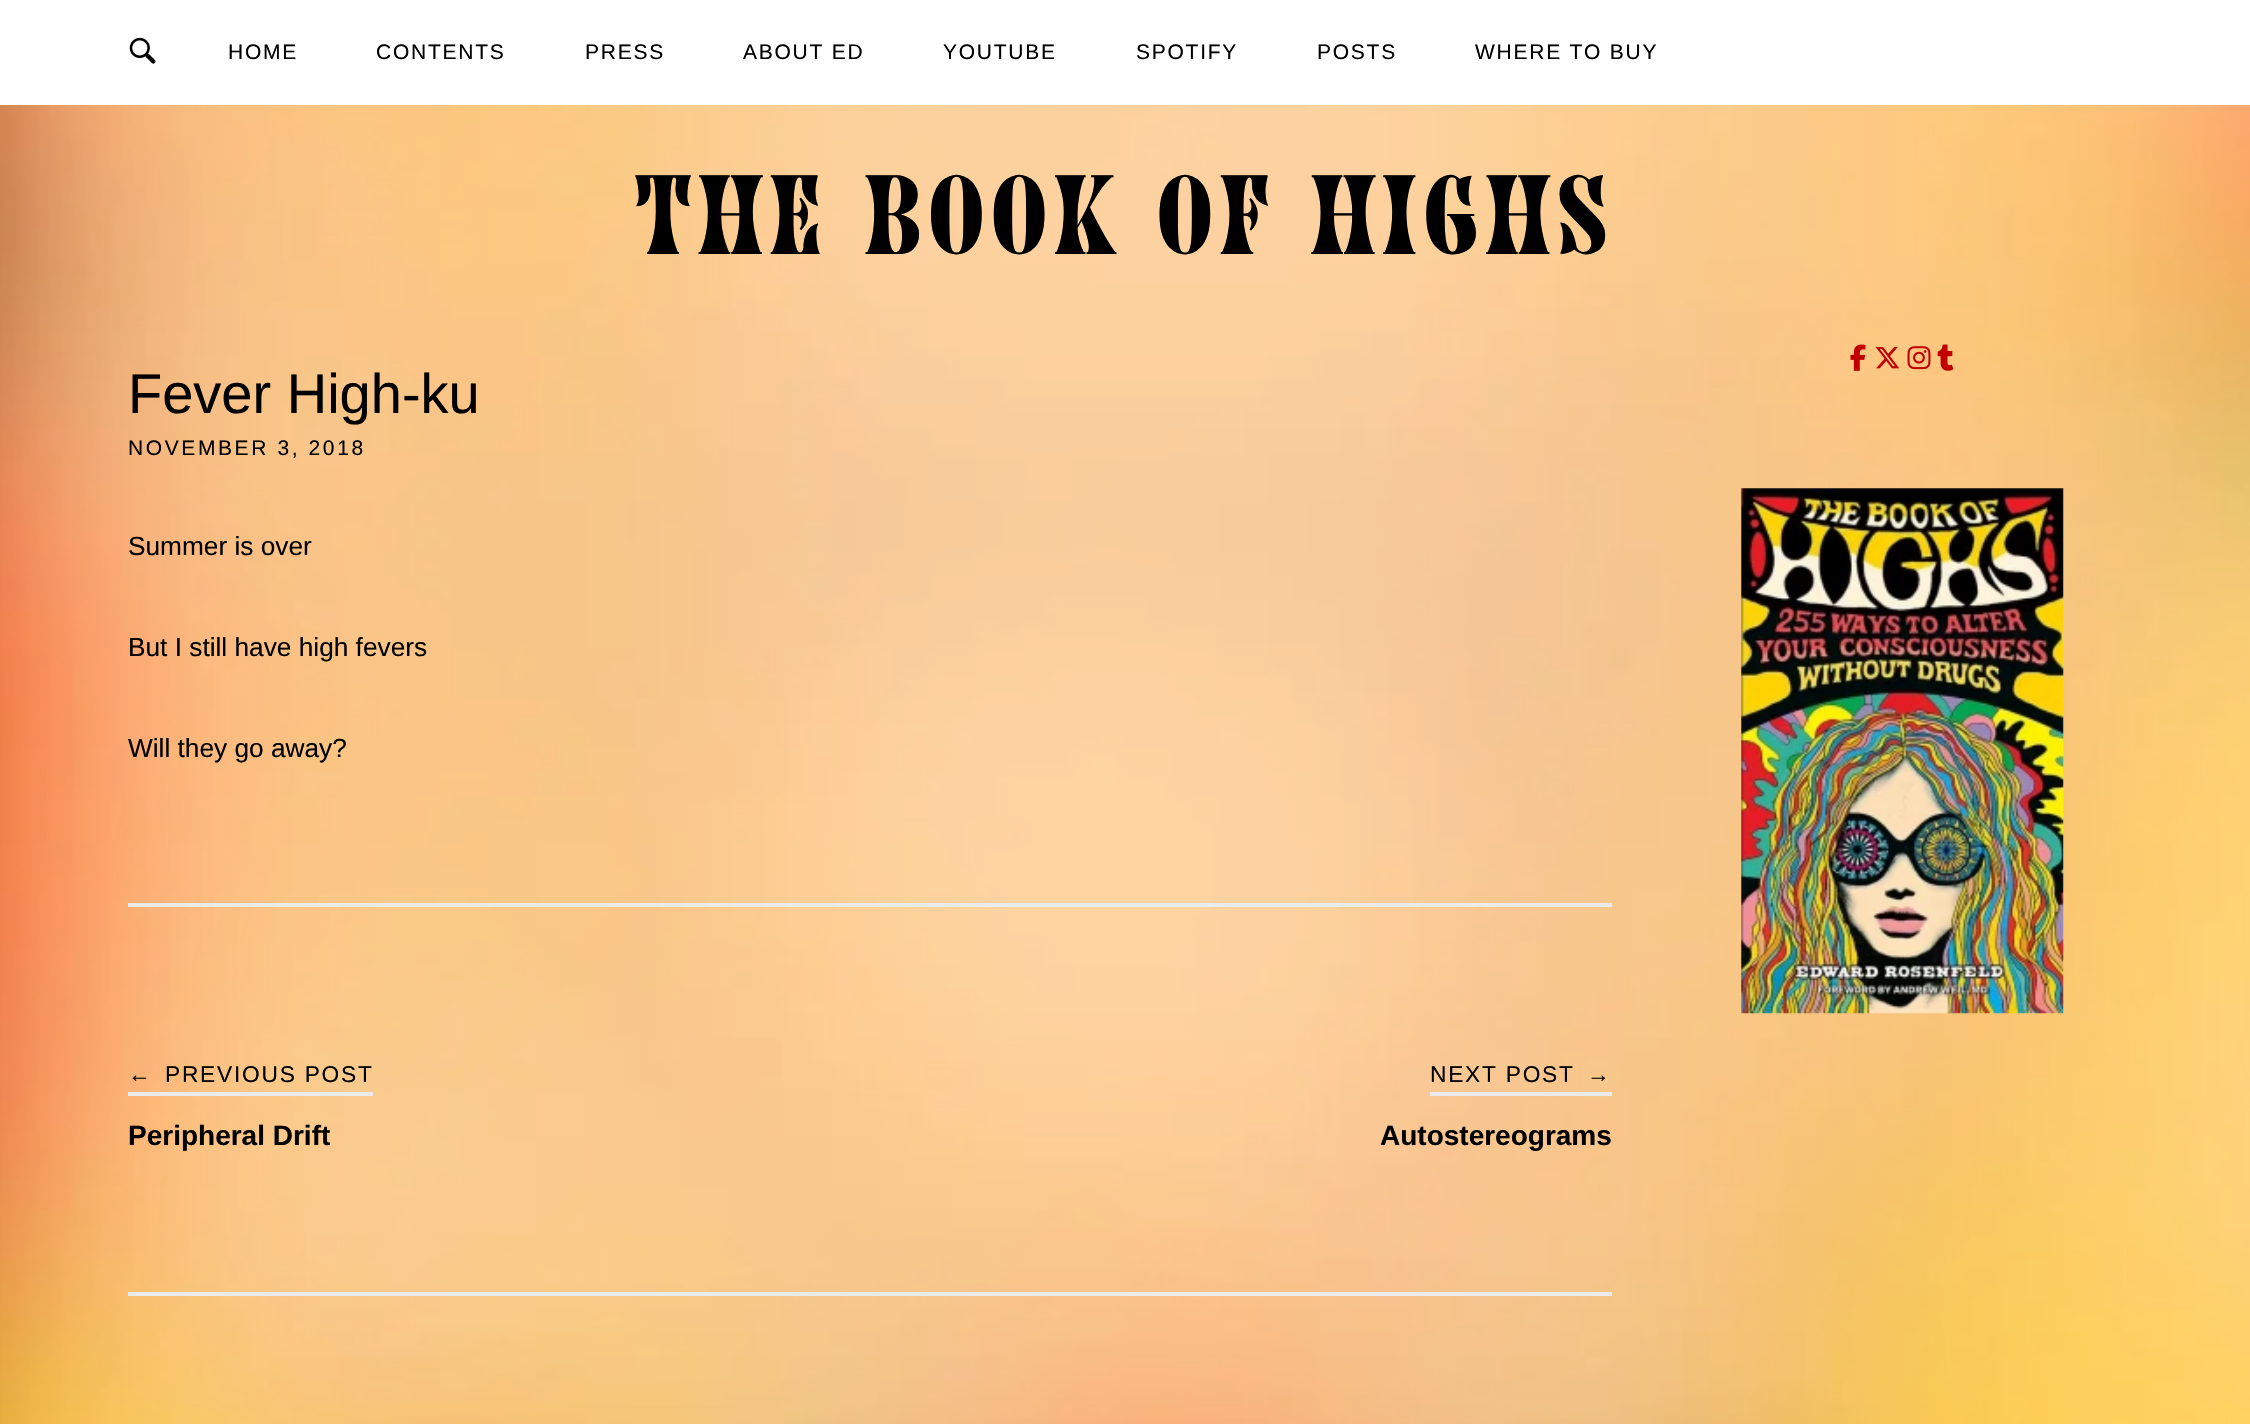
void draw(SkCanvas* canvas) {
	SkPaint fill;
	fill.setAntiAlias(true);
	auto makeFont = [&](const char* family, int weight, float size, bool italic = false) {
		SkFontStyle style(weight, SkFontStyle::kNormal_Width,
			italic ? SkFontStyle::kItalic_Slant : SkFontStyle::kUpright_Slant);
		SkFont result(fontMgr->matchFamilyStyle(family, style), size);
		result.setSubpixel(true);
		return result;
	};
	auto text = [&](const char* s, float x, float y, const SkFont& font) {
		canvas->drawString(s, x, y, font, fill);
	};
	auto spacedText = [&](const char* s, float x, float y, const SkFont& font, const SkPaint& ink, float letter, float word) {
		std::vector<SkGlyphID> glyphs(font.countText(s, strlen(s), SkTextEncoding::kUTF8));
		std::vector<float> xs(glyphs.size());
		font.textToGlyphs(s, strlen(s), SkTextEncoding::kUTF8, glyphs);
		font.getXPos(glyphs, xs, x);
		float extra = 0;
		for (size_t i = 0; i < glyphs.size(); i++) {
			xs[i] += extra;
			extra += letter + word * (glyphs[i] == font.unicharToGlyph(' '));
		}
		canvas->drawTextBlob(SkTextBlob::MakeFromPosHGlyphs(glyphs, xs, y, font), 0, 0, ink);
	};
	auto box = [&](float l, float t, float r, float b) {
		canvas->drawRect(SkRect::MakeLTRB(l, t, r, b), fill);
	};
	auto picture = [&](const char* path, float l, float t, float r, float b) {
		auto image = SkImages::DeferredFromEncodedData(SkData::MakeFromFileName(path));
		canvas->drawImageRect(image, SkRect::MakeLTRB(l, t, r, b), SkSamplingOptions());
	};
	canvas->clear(0xFFFFFFFF);
	picture("image0.png", 0, 105, 2250, 1424);
	picture("image1.png", 129, 37, 156, 64);
	fill.setColor(0xFFEBEBEB);
	box(128, 903, 1612, 907);
	box(128, 1292, 1612, 1296);
	box(128, 1092, 373, 1096);
	box(1430, 1092, 1612, 1096);
	picture("image2.png", 1850, 344, 1866, 371);
	picture("image3.png", 1875, 347, 1900, 369);
	picture("image4.png", 1907, 346, 1931, 370);
	picture("image5.png", 1937, 344, 1954, 371);
	picture("image6.png", 1741, 488, 2064, 1014);
	auto font1 = makeFont("Liberation Sans", 400, 21);
	fill.setColor(0xFF000000);
	spacedText("HOME", 228, 59, font1, fill, 1.75f, 0);
	spacedText("CONTENTS", 376, 59, font1, fill, 1.75f, 0);
	spacedText("PRESS", 585, 59, font1, fill, 1.75f, 0);
	spacedText("ABOUT ED", 743, 59, font1, fill, 1.75f, 0);
	spacedText("YOUTUBE", 943, 59, font1, fill, 1.75f, 0);
	spacedText("SPOTIFY", 1136, 59, font1, fill, 1.75f, 0);
	spacedText("POSTS", 1317, 59, font1, fill, 1.75f, 0);
	spacedText("WHERE TO BUY", 1475, 59, font1, fill, 1.75f, 0);
	auto font2 = makeFont("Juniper", 400, 105);
	spacedText("THE BOOK OF HIGHS", 635, 254, font2, fill, 7, 0);
	auto font3 = makeFont("Liberation Sans", 400, 56);
	text("Fever High-ku", 128, 413, font3);
	spacedText("NOVEMBER 3, 2018", 128, 455, font1, fill, 2.6f, 0);
	auto font4 = makeFont("Liberation Sans", 400, 26.25f);
	text("Summer is over", 128, 555, font4);
	text("But I still have high fevers", 128, 656, font4);
	text("Will they go away?", 128, 757, font4);
	auto font5 = makeFont("Liberation Sans", 400, 22.75f);
	spacedText("←", 128, 1082, font5, fill, 1.75f, 0);
	spacedText("PREVIOUS POST", 165, 1082, font5, fill, 1.75f, 0);
	auto font6 = makeFont("Liberation Sans", 700, 28);
	text("Peripheral Drift", 128, 1145, font6);
	spacedText("NEXT POST", 1430, 1082, font5, fill, 1.75f, 0);
	spacedText("→", 1587, 1082, font5, fill, 1.75f, 0);
	text("Autostereograms", 1380, 1145, font6);
}
